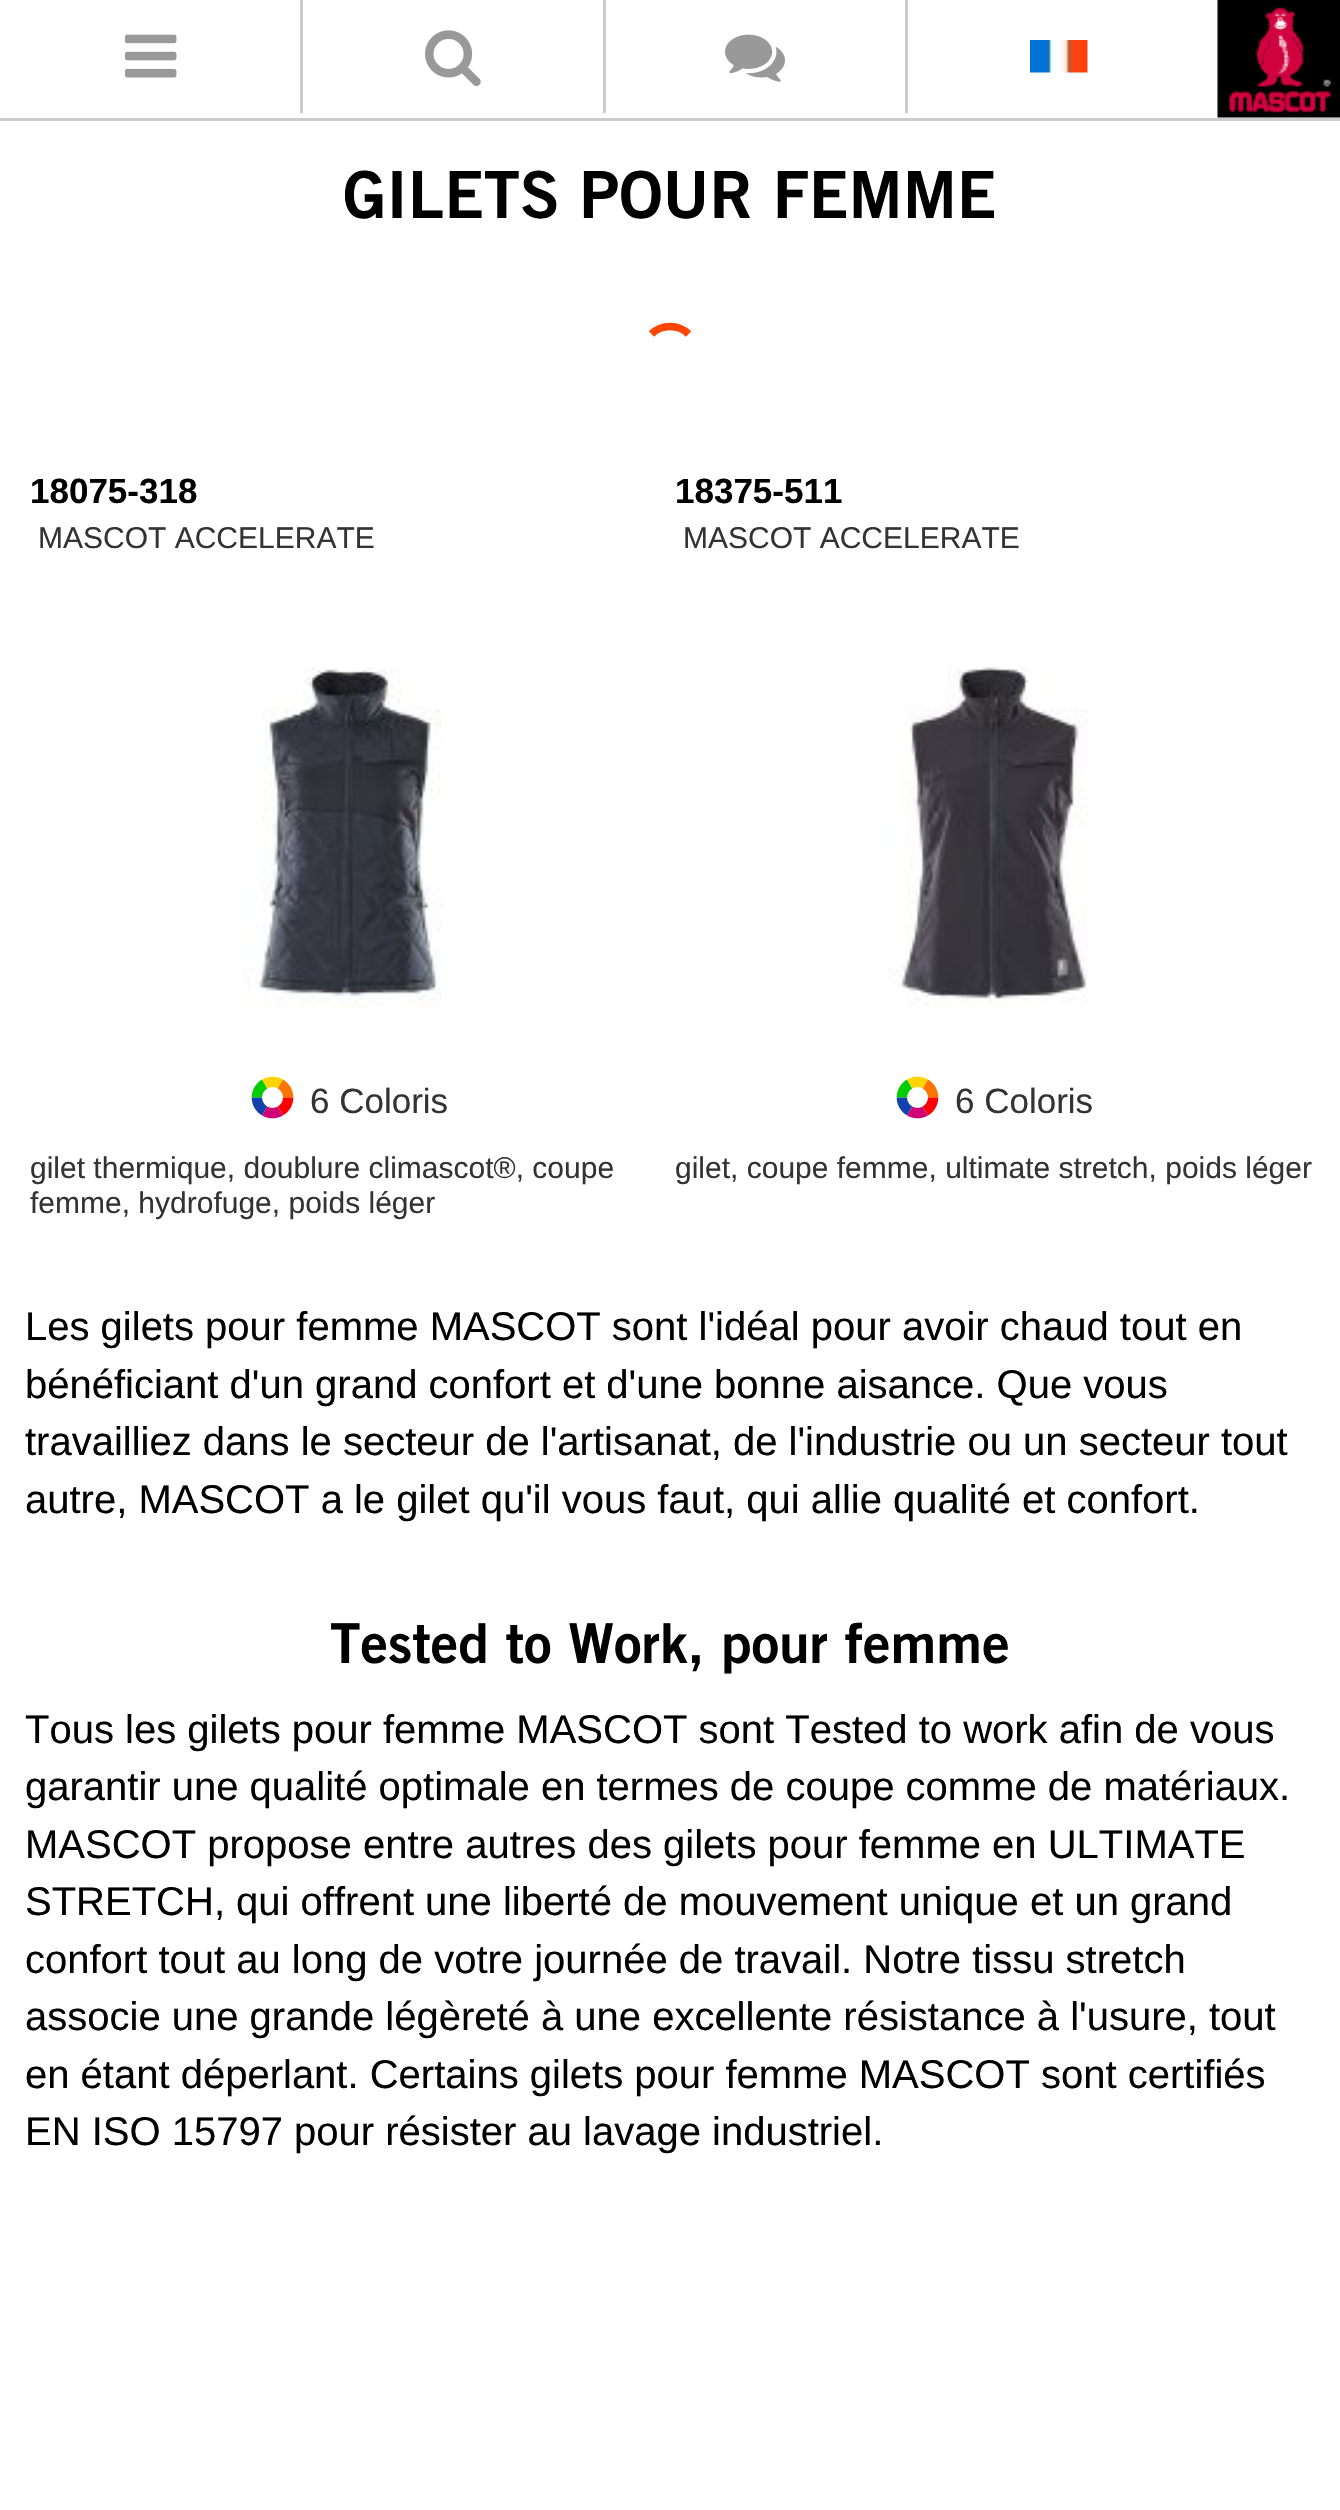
void draw(SkCanvas* canvas) {
	SkPaint fill;
	fill.setAntiAlias(true);
	auto makeFont = [&](const char* family, int weight, float size, bool italic = false) {
		SkFontStyle style(weight, SkFontStyle::kNormal_Width,
			italic ? SkFontStyle::kItalic_Slant : SkFontStyle::kUpright_Slant);
		SkFont result(fontMgr->matchFamilyStyle(family, style), size);
		result.setSubpixel(true);
		return result;
	};
	auto text = [&](const char* s, float x, float y, const SkFont& font) {
		canvas->drawString(s, x, y, font, fill);
	};
	auto box = [&](float l, float t, float r, float b) {
		canvas->drawRect(SkRect::MakeLTRB(l, t, r, b), fill);
	};
	auto picture = [&](const char* path, float l, float t, float r, float b) {
		auto image = SkImages::DeferredFromEncodedData(SkData::MakeFromFileName(path));
		canvas->drawImageRect(image, SkRect::MakeLTRB(l, t, r, b), SkSamplingOptions());
	};
	canvas->clear(0xFFFFFFFF);
	fill.setColor(0xFFCCCCCC);
	box(0, 118, 1340, 121);
	box(300, 0, 303, 113);
	picture("image0.png", 125, 34, 177, 78);
	box(603, 0, 606, 113);
	picture("image1.png", 425, 30, 481, 87);
	box(905, 0, 908, 113);
	picture("image2.png", 725, 34, 785, 82);
	picture("image3.png", 1030, 40, 1088, 73);
	picture("image4.png", 1217, 0, 1340, 118);
	fill.setStyle(SkPaint::kStroke_Style);
	fill.setStrokeWidth(7.5f);
	fill.setColor(0xFFFF4500);
	canvas->drawPath(SkPathBuilder().moveTo(651.5f, 334).cubicTo(661.5f, 324, 678.5f, 324, 688.5f, 334).moveTo(651.5f, 334).cubicTo(661.5f, 324, 678.5f, 324, 688.5f, 334).moveTo(651.5f, 334).cubicTo(661.5f, 324, 678.5f, 324, 688.5f, 334).moveTo(651.5f, 334).cubicTo(661.5f, 324, 678.5f, 324, 688.5f, 334).detach(), fill);
	picture("image5.png", 243, 667, 442, 1008);
	picture("image6.png", 251, 1076, 294, 1119);
	picture("image7.png", 888, 667, 1088, 1007);
	picture("image6.png", 896, 1076, 939, 1119);
	auto font1 = makeFont("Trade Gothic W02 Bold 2", 700, 65);
	fill.setStyle(SkPaint::kFill_Style);
	fill.setColor(0xFF000000);
	text("GILETS POUR FEMME", 343, 218, font1);
	auto font2 = makeFont("Liberation Sans", 700, 35);
	text("18075-318", 30, 503, font2);
	auto font3 = makeFont("Liberation Sans", 400, 30);
	fill.setColor(0xFF333333);
	text("MASCOT ACCELERATE", 38, 548, font3);
	auto font4 = makeFont("Liberation Sans", 400, 35);
	text("6 Coloris", 310, 1113, font4);
	text("gilet thermique, doublure climascot®, coupe", 30, 1178, font3);
	text("femme, hydrofuge, poids léger", 30, 1213, font3);
	fill.setColor(0xFF000000);
	text("18375-511", 675, 503, font2);
	fill.setColor(0xFF333333);
	text("MASCOT ACCELERATE", 683, 548, font3);
	text("6 Coloris", 955, 1113, font4);
	text("gilet, coupe femme, ultimate stretch, poids léger", 675, 1178, font3);
	auto font5 = makeFont("Liberation Sans", 400, 40);
	fill.setColor(0xFF000000);
	text("Les gilets pour femme MASCOT sont l'idéal pour avoir chaud tout en", 25, 1340, font5);
	text("bénéficiant d'un grand confort et d'une bonne aisance. Que vous", 25, 1398, font5);
	text("travailliez dans le secteur de l'artisanat, de l'industrie ou un secteur tout", 25, 1455, font5);
	text("autre, MASCOT a le gilet qu'il vous faut, qui allie qualité et confort.", 25, 1513, font5);
	auto font6 = makeFont("Trade Gothic W02 Bold 2", 700, 55);
	text("Tested to Work, pour femme", 330, 1663, font6);
	text("Tous les gilets pour femme MASCOT sont Tested to work afin de vous", 25, 1743, font5);
	text("garantir une qualité optimale en termes de coupe comme de matériaux.", 25, 1800, font5);
	text("MASCOT propose entre autres des gilets pour femme en ULTIMATE", 25, 1858, font5);
	text("STRETCH, qui offrent une liberté de mouvement unique et un grand", 25, 1915, font5);
	text("confort tout au long de votre journée de travail. Notre tissu stretch", 25, 1973, font5);
	text("associe une grande légèreté à une excellente résistance à l'usure, tout", 25, 2030, font5);
	text("en étant déperlant. Certains gilets pour femme MASCOT sont certifiés", 25, 2088, font5);
	text("EN ISO 15797 pour résister au lavage industriel.", 25, 2145, font5);
}
